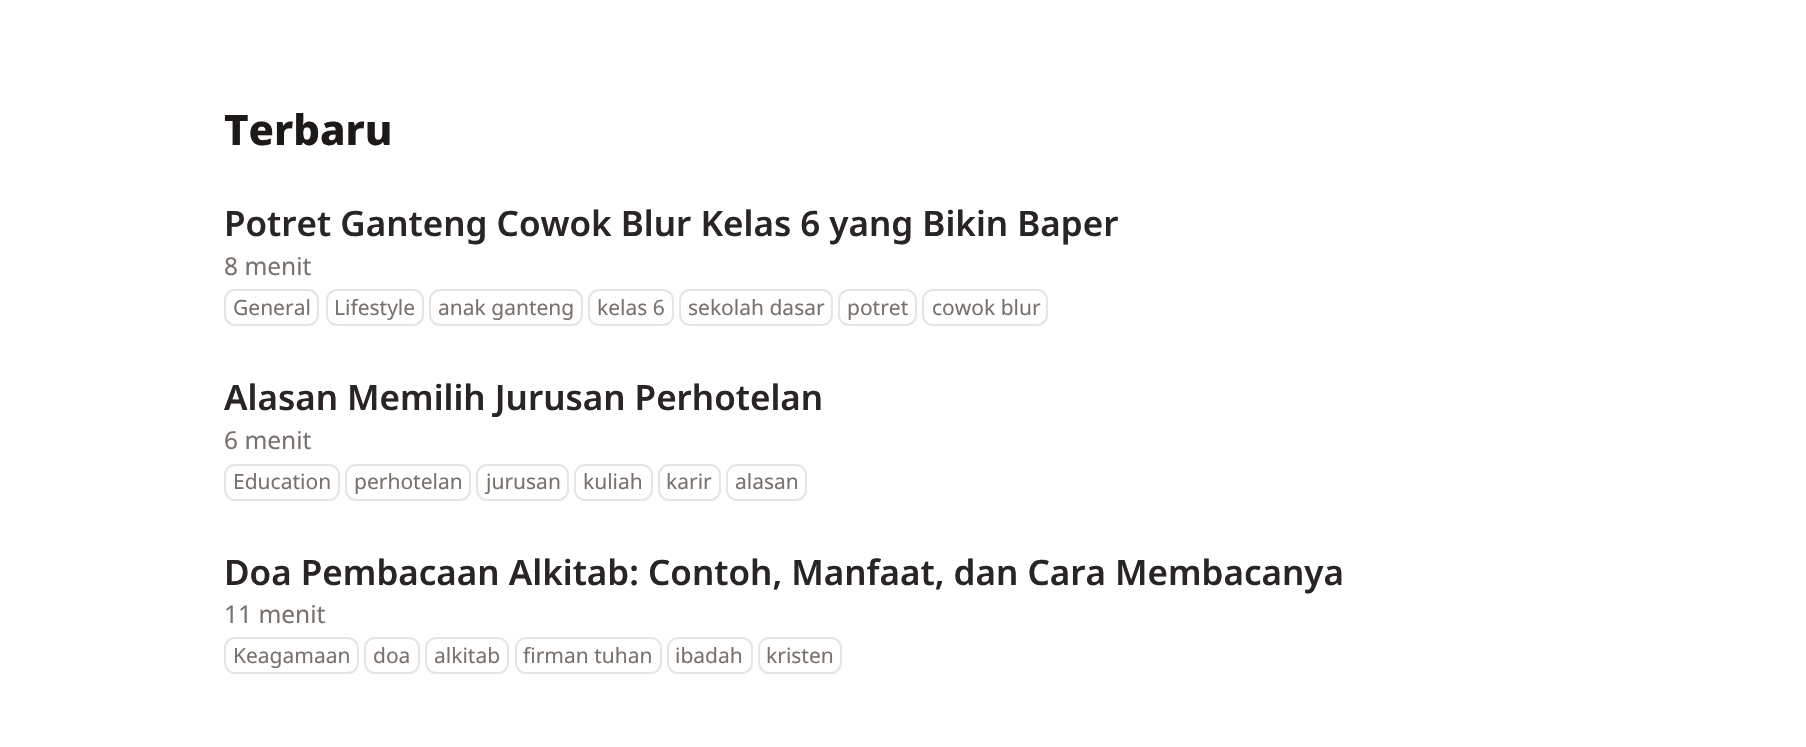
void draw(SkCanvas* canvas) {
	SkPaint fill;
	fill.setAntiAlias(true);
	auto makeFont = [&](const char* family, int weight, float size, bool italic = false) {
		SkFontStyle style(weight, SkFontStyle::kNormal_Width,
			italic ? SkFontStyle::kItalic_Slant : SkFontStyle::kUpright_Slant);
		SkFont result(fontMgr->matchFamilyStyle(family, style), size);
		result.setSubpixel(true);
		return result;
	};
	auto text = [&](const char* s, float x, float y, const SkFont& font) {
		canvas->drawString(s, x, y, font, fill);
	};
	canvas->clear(0xFFFFFFFF);
	fill.setStyle(SkPaint::kStroke_Style);
	fill.setStrokeWidth(2);
	fill.setColor(0xFFE7E5E4);
	canvas->drawRoundRect(SkRect::MakeLTRB(225, 290, 318, 325), 10, 10, fill);
	canvas->drawRoundRect(SkRect::MakeLTRB(327, 290, 423, 325), 10, 10, fill);
	canvas->drawRoundRect(SkRect::MakeLTRB(430, 290, 582, 325), 10, 10, fill);
	canvas->drawRoundRect(SkRect::MakeLTRB(589, 290, 673, 325), 10, 10, fill);
	canvas->drawRoundRect(SkRect::MakeLTRB(680, 290, 832, 325), 10, 10, fill);
	canvas->drawRoundRect(SkRect::MakeLTRB(839, 290, 916, 325), 10, 10, fill);
	canvas->drawRoundRect(SkRect::MakeLTRB(923, 290, 1047, 325), 10, 10, fill);
	canvas->drawRoundRect(SkRect::MakeLTRB(225, 465, 339, 500), 10, 10, fill);
	canvas->drawRoundRect(SkRect::MakeLTRB(346, 465, 470, 500), 10, 10, fill);
	canvas->drawRoundRect(SkRect::MakeLTRB(477, 465, 568, 500), 10, 10, fill);
	canvas->drawRoundRect(SkRect::MakeLTRB(575, 465, 652, 500), 10, 10, fill);
	canvas->drawRoundRect(SkRect::MakeLTRB(659, 465, 720, 500), 10, 10, fill);
	canvas->drawRoundRect(SkRect::MakeLTRB(727, 465, 806, 500), 10, 10, fill);
	canvas->drawRoundRect(SkRect::MakeLTRB(225, 638, 358, 673), 10, 10, fill);
	canvas->drawRoundRect(SkRect::MakeLTRB(365, 638, 419, 673), 10, 10, fill);
	canvas->drawRoundRect(SkRect::MakeLTRB(426, 638, 508, 673), 10, 10, fill);
	canvas->drawRoundRect(SkRect::MakeLTRB(516, 638, 661, 673), 10, 10, fill);
	canvas->drawRoundRect(SkRect::MakeLTRB(668, 638, 752, 673), 10, 10, fill);
	canvas->drawRoundRect(SkRect::MakeLTRB(759, 638, 841, 673), 10, 10, fill);
	auto font1 = makeFont("Noto Sans", 800, 42);
	fill.setStyle(SkPaint::kFill_Style);
	fill.setColor(0xFF1C1917);
	text("Terbaru", 224, 145, font1);
	auto font2 = makeFont("Noto Sans", 600, 35);
	fill.setColor(0xFF292524);
	text("Potret Ganteng Cowok Blur Kelas 6 yang Bikin Baper", 224, 236, font2);
	auto font3 = makeFont("Noto Sans", 400, 24.5f);
	fill.setColor(0xFF78716C);
	text("8 menit", 224, 275, font3);
	auto font4 = makeFont("Noto Sans", 400, 21);
	text("General", 233, 315, font4);
	text("Lifestyle", 334, 315, font4);
	text("anak ganteng", 438, 315, font4);
	text("kelas 6", 597, 315, font4);
	text("sekolah dasar", 688, 315, font4);
	text("potret", 847, 315, font4);
	text("cowok blur", 932, 315, font4);
	fill.setColor(0xFF292524);
	text("Alasan Memilih Jurusan Perhotelan", 224, 410, font2);
	fill.setColor(0xFF78716C);
	text("6 menit", 224, 449, font3);
	text("Education", 233, 489, font4);
	text("perhotelan", 354, 489, font4);
	text("jurusan", 486, 489, font4);
	text("kuliah", 583, 489, font4);
	text("karir", 666, 489, font4);
	text("alasan", 735, 489, font4);
	fill.setColor(0xFF292524);
	text("Doa Pembacaan Alkitab: Contoh, Manfaat, dan Cara Membacanya", 224, 585, font2);
	fill.setColor(0xFF78716C);
	text("11 menit", 224, 623, font3);
	text("Keagamaan", 233, 663, font4);
	text("doa", 373, 663, font4);
	text("alkitab", 434, 663, font4);
	text("firman tuhan", 523, 663, font4);
	text("ibadah", 675, 663, font4);
	text("kristen", 766, 663, font4);
}
